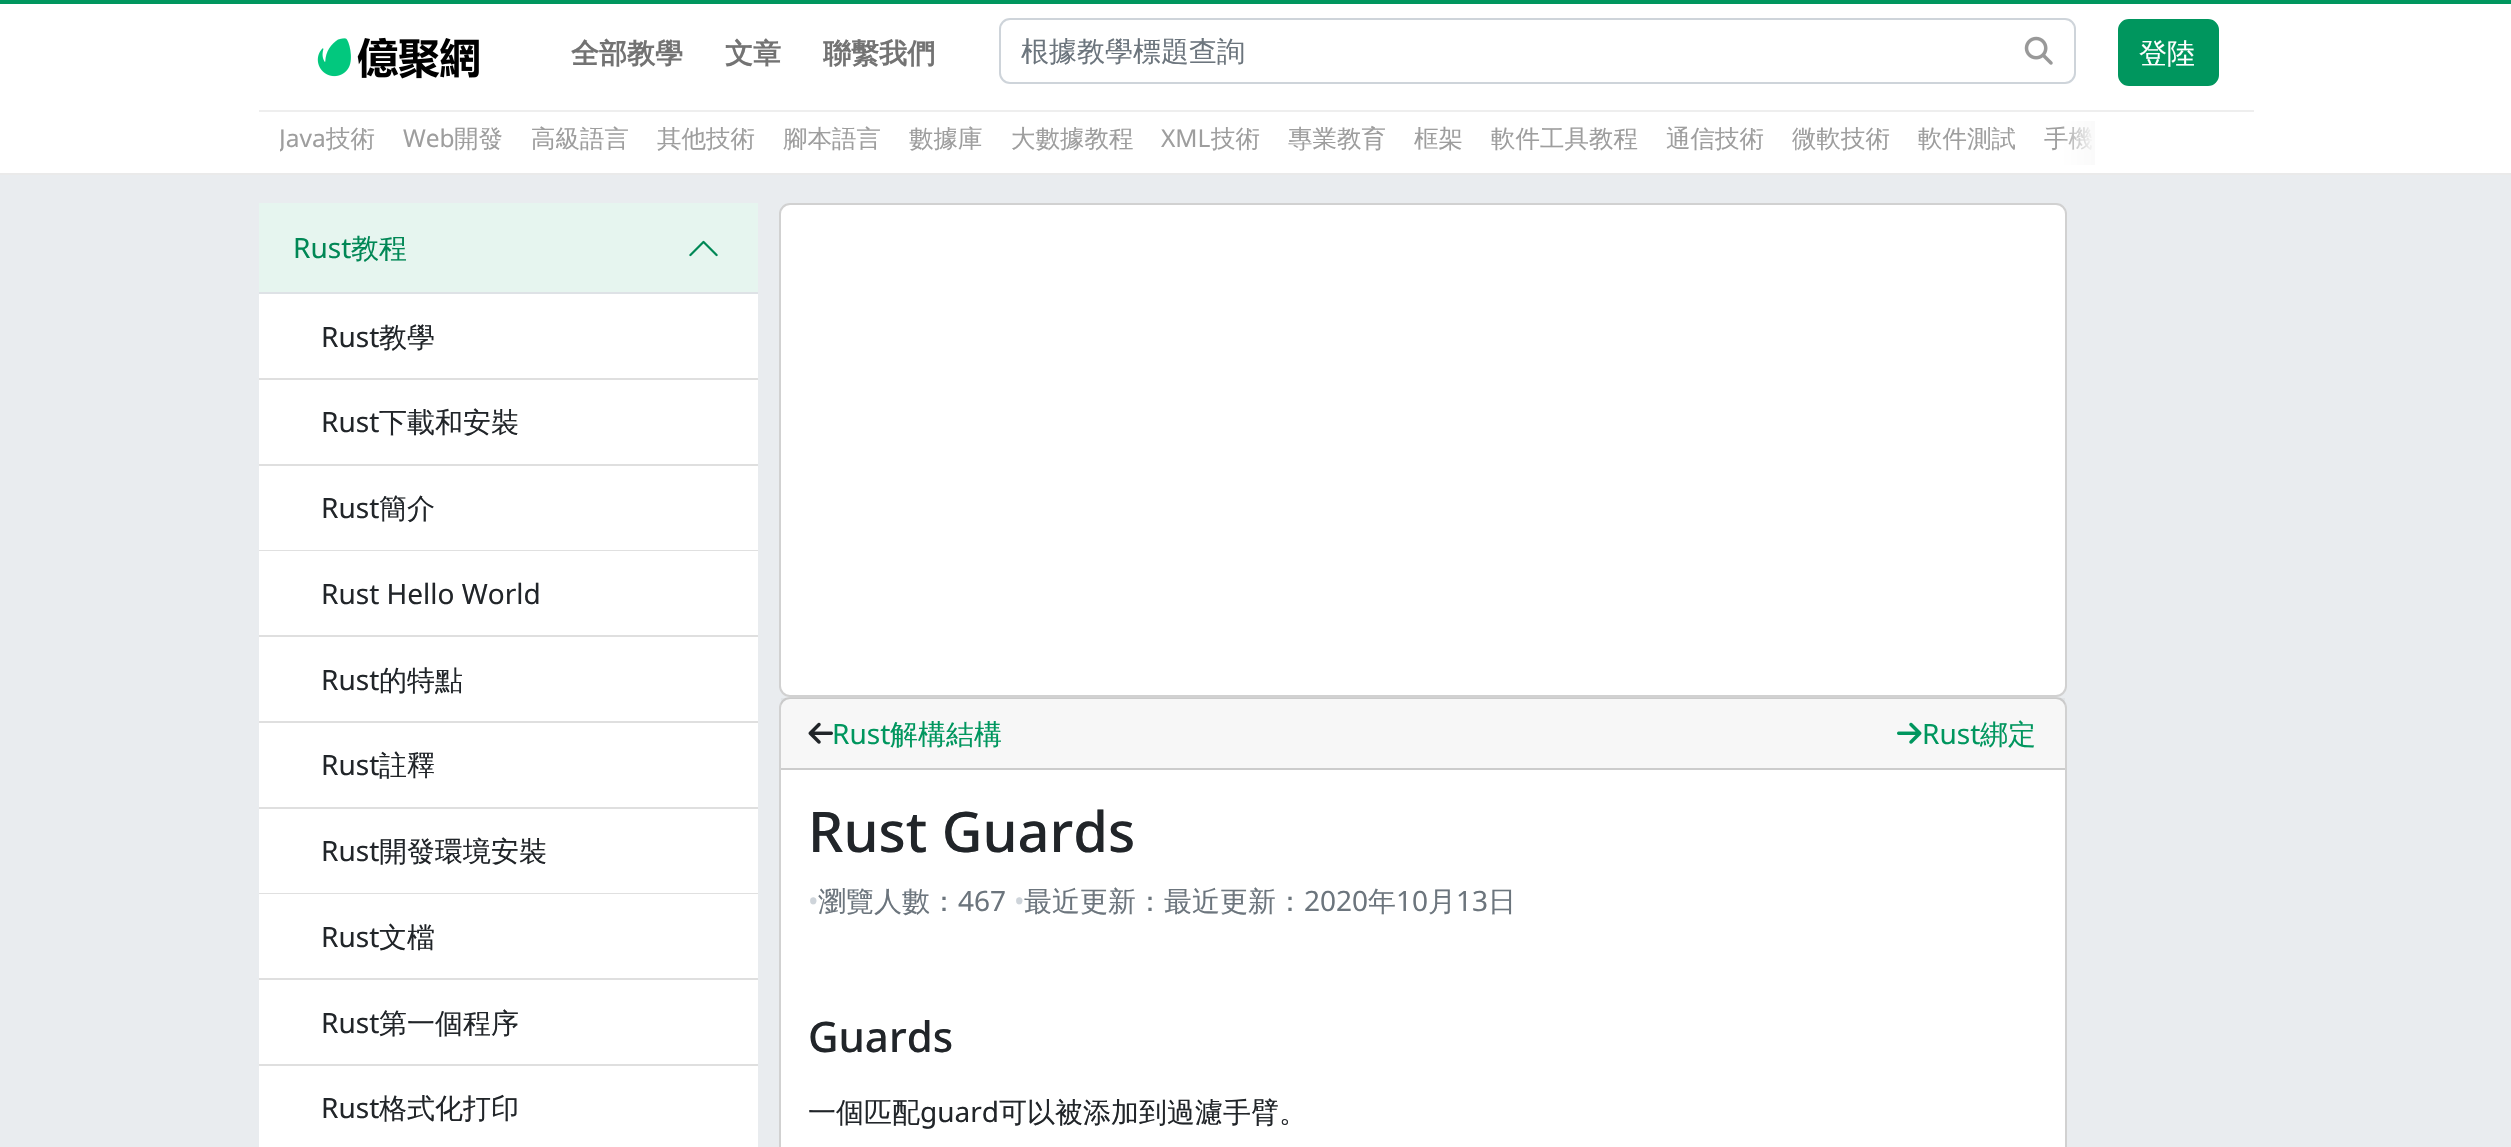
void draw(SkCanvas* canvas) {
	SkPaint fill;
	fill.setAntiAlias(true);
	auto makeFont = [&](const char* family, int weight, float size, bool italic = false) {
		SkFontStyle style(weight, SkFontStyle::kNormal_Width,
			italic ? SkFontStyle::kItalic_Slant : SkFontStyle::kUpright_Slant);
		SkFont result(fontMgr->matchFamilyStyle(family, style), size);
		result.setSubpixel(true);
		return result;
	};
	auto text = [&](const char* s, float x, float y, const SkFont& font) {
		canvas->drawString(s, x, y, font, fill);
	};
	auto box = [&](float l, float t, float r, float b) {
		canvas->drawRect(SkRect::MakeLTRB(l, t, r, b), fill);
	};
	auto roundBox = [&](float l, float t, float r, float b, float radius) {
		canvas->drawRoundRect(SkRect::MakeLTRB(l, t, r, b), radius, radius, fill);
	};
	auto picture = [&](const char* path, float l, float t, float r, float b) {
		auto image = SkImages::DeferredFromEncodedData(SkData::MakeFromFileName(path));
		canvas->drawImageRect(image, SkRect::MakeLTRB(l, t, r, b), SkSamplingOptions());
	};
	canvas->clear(0xFFFFFFFF);
	fill.setColor(0xFF00965E);
	box(0, 0, 2511, 4);
	picture("image0.png", 317, 37, 479, 79);
	fill.setStyle(SkPaint::kStroke_Style);
	fill.setStrokeWidth(2);
	fill.setColor(0xFFCED4DA);
	canvas->drawRoundRect(SkRect::MakeLTRB(1000, 19, 2075, 83), 10, 10, fill);
	picture("image1.png", 2024, 36, 2053, 65);
	fill.setStyle(SkPaint::kFill_Style);
	fill.setColor(0xFF00965E);
	canvas->drawRoundRect(SkRect::MakeLTRB(2119, 20, 2218, 85), 10, 10, fill);
	fill.setStyle(SkPaint::kStroke_Style);
	canvas->drawRoundRect(SkRect::MakeLTRB(2119, 20, 2218, 85), 10, 10, fill);
	fill.setStyle(SkPaint::kFill_Style);
	fill.setColor(0xFFEAEAEA);
	box(0, 173, 2511, 175);
	fill.setColor(0xFFEEEEEE);
	box(259, 110, 2254, 112);
	fill.setColor(0xFFE9ECEF);
	box(0, 175, 2511, 1147);
	fill.setColor(0xFFE6F5EF);
	box(259, 203, 758, 292);
	fill.setColor(0xFFDEE2E6);
	box(259, 292, 758, 294);
	picture("image2.png", 689, 240, 718, 257);
	fill.setColor(0xFFFFFFFF);
	box(259, 294, 758, 378);
	fill.setColor(0xFFDFDFDF);
	box(259, 378, 758, 380);
	fill.setColor(0xFFFFFFFF);
	box(259, 380, 758, 464);
	fill.setColor(0xFFDFDFDF);
	box(259, 464, 758, 466);
	fill.setColor(0xFFFFFFFF);
	box(259, 466, 758, 550);
	fill.setColor(0xFFE0E0E0);
	box(259, 550, 758, 551);
	fill.setColor(0xFFFFFFFF);
	box(259, 551, 758, 635);
	fill.setColor(0xFFDFDFDF);
	box(259, 635, 758, 637);
	fill.setColor(0xFFFFFFFF);
	box(259, 637, 758, 721);
	fill.setColor(0xFFDFDFDF);
	box(259, 721, 758, 723);
	fill.setColor(0xFFFFFFFF);
	box(259, 723, 758, 807);
	fill.setColor(0xFFDFDFDF);
	box(259, 807, 758, 809);
	fill.setColor(0xFFFFFFFF);
	box(259, 809, 758, 893);
	fill.setColor(0xFFE0E0E0);
	box(259, 893, 758, 894);
	fill.setColor(0xFFFFFFFF);
	box(259, 894, 758, 978);
	fill.setColor(0xFFDFDFDF);
	box(259, 978, 758, 980);
	fill.setColor(0xFFFFFFFF);
	box(259, 980, 758, 1064);
	fill.setColor(0xFFDFDFDF);
	box(259, 1064, 758, 1066);
	fill.setColor(0xFFFFFFFF);
	box(259, 1066, 758, 1147);
	roundBox(779, 203, 2067, 697, 11);
	fill.setStyle(SkPaint::kStroke_Style);
	fill.setColor(0x2E000000);
	canvas->drawRoundRect(SkRect::MakeLTRB(780, 204, 2066, 696), 10, 10, fill);
	fill.setStyle(SkPaint::kFill_Style);
	fill.setColor(0xFFFFFFFF);
	roundBox(779, 697, 2067, 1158, 11);
	fill.setStyle(SkPaint::kStroke_Style);
	fill.setColor(0x2E000000);
	canvas->drawRoundRect(SkRect::MakeLTRB(780, 698, 2066, 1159), 10, 10, fill);
	fill.setStyle(SkPaint::kFill_Style);
	fill.setColor(0x08000000);
	box(781, 698, 2065, 768);
	fill.setColor(0xFFCCCCCC);
	box(781, 768, 2065, 770);
	picture("image3.png", 808, 722, 833, 744);
	picture("image4.png", 1897, 722, 1922, 744);
	auto font1 = makeFont("WenQuanYi Zen Hei", 700, 28);
	fill.setColor(0xFF737373);
	text("全部教學", 571, 63, font1);
	text("文章", 725, 63, font1);
	text("聯繫我們", 823, 63, font1);
	auto font2 = makeFont("WenQuanYi Zen Hei", 500, 28);
	fill.setColor(0xFF6C757D);
	text("根據教學標題查詢", 1021, 61, font2);
	fill.setColor(0xFFFFFFFF);
	text("登陸", 2139, 63, font2);
	canvas->save();
	canvas->clipRect(SkRect::MakeLTRB(280, 112, 2095, 165));
	auto font3 = makeFont("Noto Sans", 400, 24.5f);
	fill.setColor(0xFF9E9E9E);
	text("Java", 279, 147, font3);
	canvas->restore();
	auto font4 = makeFont("WenQuanYi Zen Hei", 500, 24.5f);
	text("技術", 326, 147, font4);
	text("Web", 403, 147, font3);
	text("開發", 454, 147, font4);
	text("高級語言", 531, 147, font4);
	text("其他技術", 657, 147, font4);
	text("腳本語言", 783, 147, font4);
	text("數據庫", 909, 147, font4);
	text("大數據教程", 1011, 147, font4);
	text("XML", 1161, 147, font3);
	text("技術", 1211, 147, font4);
	text("專業教育", 1288, 147, font4);
	text("框架", 1414, 147, font4);
	text("軟件工具教程", 1491, 147, font4);
	text("通信技術", 1666, 147, font4);
	text("微軟技術", 1792, 147, font4);
	text("軟件測試", 1918, 147, font4);
	text("手機", 2044, 147, font4);
	{
		const SkColor colors[] = {0x00FAFAFA, 0xFFFAFAFA};
		const float stops[] = {0, 1};
		const SkPoint ends[] = {{2060, 147}, {2095, 147}};
		fill.setShader(SkGradientShader::MakeLinear(ends, colors, stops, 2, SkTileMode::kClamp));
		fill.setAlpha(255);
	}
	box(2061, 121, 2095, 165);
	auto font5 = makeFont("Noto Sans", 400, 28);
	fill.setShader(nullptr);
	fill.setColor(0xFF008755);
	text("Rust", 293, 258, font5);
	text("教程", 351, 258, font2);
	fill.setColor(0xFF212529);
	text("Rust", 321, 347, font5);
	text("教學", 379, 347, font2);
	text("Rust", 321, 432, font5);
	text("下載和安裝", 379, 432, font2);
	text("Rust", 321, 518, font5);
	text("簡介", 379, 518, font2);
	text("Rust Hello World", 321, 604, font5);
	text("Rust", 321, 690, font5);
	text("的特點", 379, 690, font2);
	text("Rust", 321, 775, font5);
	text("註釋", 379, 775, font2);
	text("Rust", 321, 861, font5);
	text("開發環境安裝", 379, 861, font2);
	text("Rust", 321, 947, font5);
	text("文檔", 379, 947, font2);
	text("Rust", 321, 1033, font5);
	text("第一個程序", 379, 1033, font2);
	text("Rust", 321, 1118, font5);
	text("格式化打印", 379, 1118, font2);
	fill.setColor(0xFF00965E);
	text("Rust", 832, 744, font5);
	text("解構結構", 890, 744, font2);
	text("Rust", 1922, 744, font5);
	text("綁定", 1980, 744, font2);
	auto font6 = makeFont("Noto Sans", 500, 56);
	fill.setColor(0xFF212529);
	text("Rust Guards", 808, 852, font6);
	fill.setColor(0xFFCED4DA);
	text("•", 808, 911, font5);
	fill.setColor(0xFF6C757D);
	text("瀏覽人數：", 818, 911, font2);
	text("467", 958, 911, font5);
	fill.setColor(0xFFCED4DA);
	text("•", 1014, 911, font5);
	fill.setColor(0xFF6C757D);
	text("最近更新：最近更新：", 1024, 911, font2);
	text("2020", 1304, 911, font5);
	text("年", 1368, 911, font2);
	text("10", 1396, 911, font5);
	text("月", 1428, 911, font2);
	text("13", 1456, 911, font5);
	text("日", 1488, 911, font2);
	auto font7 = makeFont("Noto Sans", 500, 42);
	fill.setColor(0xFF212529);
	text("Guards", 808, 1052, font7);
	text("一個匹配", 808, 1122, font2);
	text("guard", 920, 1122, font5);
	text("可以被添加到過濾手臂。", 999, 1122, font2);
}
